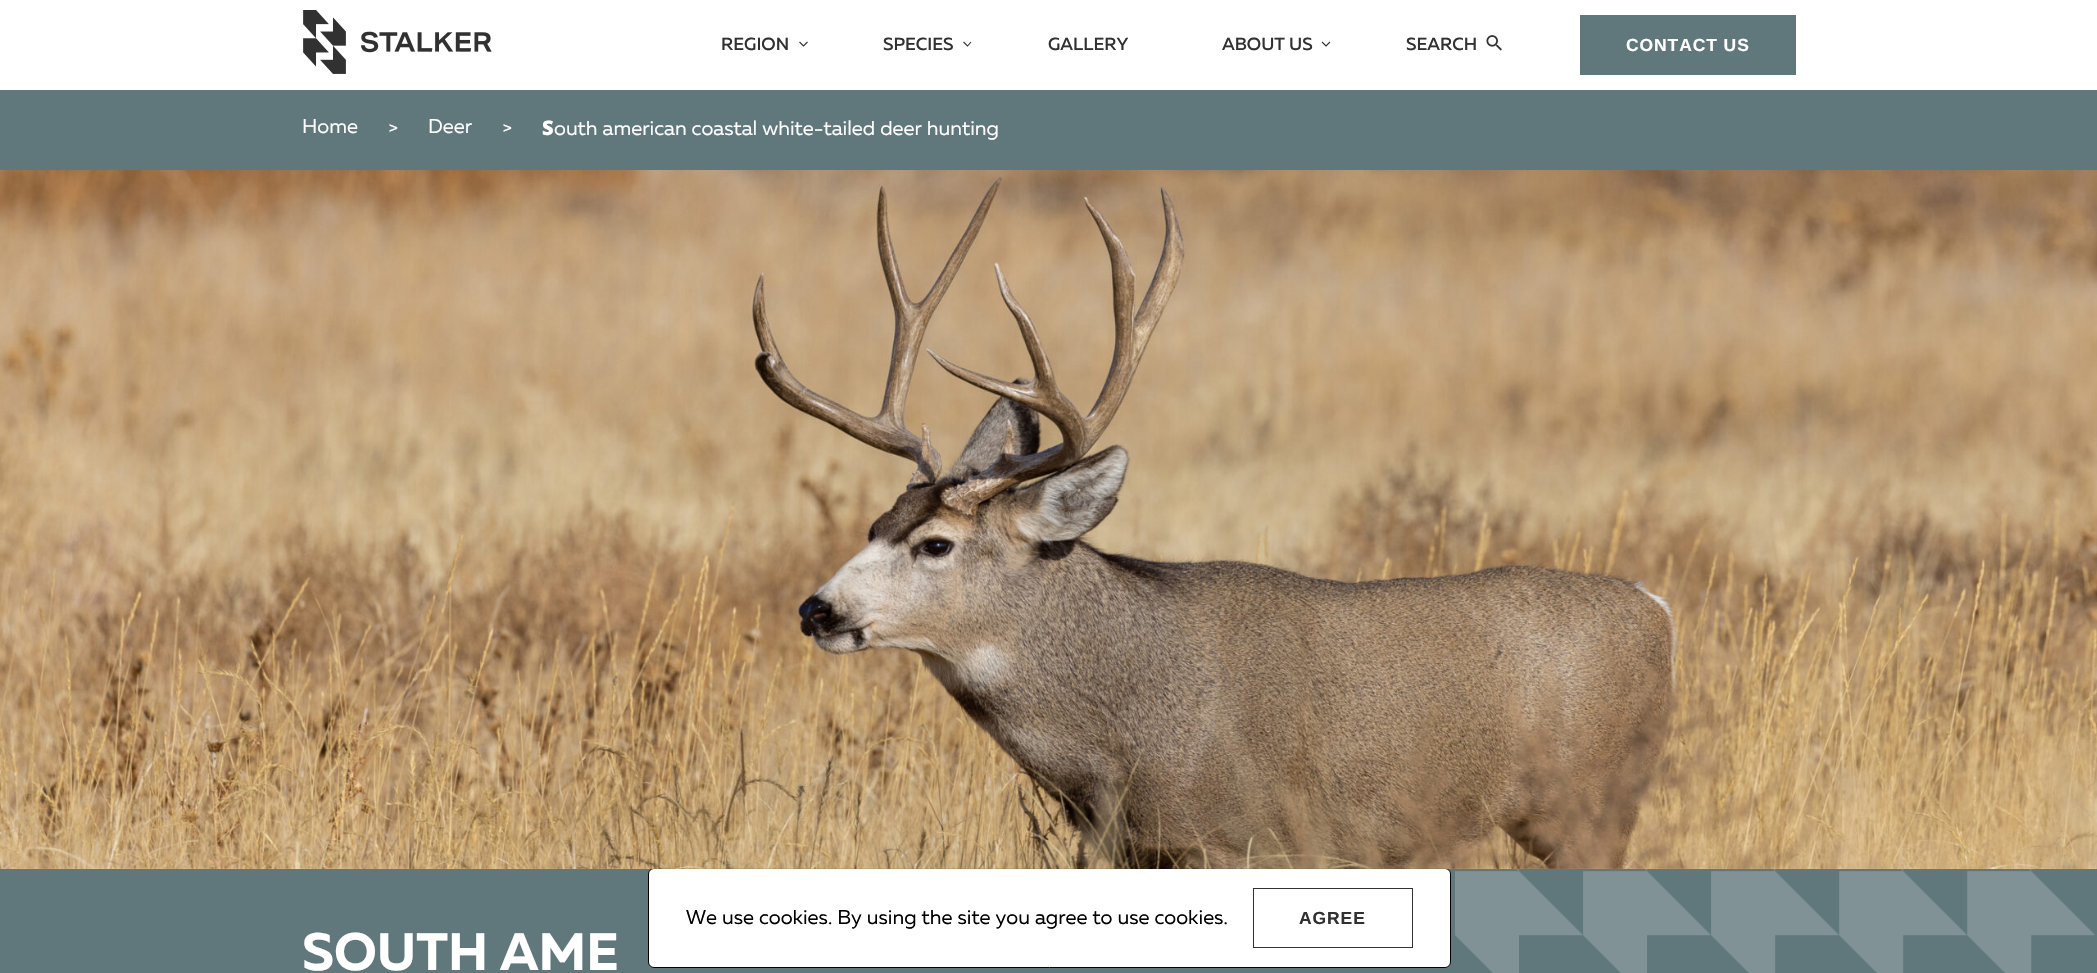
void draw(SkCanvas* canvas) {
	SkPaint fill;
	fill.setAntiAlias(true);
	auto makeFont = [&](const char* family, int weight, float size, bool italic = false) {
		SkFontStyle style(weight, SkFontStyle::kNormal_Width,
			italic ? SkFontStyle::kItalic_Slant : SkFontStyle::kUpright_Slant);
		SkFont result(fontMgr->matchFamilyStyle(family, style), size);
		result.setSubpixel(true);
		return result;
	};
	auto text = [&](const char* s, float x, float y, const SkFont& font) {
		canvas->drawString(s, x, y, font, fill);
	};
	auto spacedText = [&](const char* s, float x, float y, const SkFont& font, const SkPaint& ink, float letter, float word) {
		std::vector<SkGlyphID> glyphs(font.countText(s, strlen(s), SkTextEncoding::kUTF8));
		std::vector<float> xs(glyphs.size());
		font.textToGlyphs(s, strlen(s), SkTextEncoding::kUTF8, glyphs);
		font.getXPos(glyphs, xs, x);
		float extra = 0;
		for (size_t i = 0; i < glyphs.size(); i++) {
			xs[i] += extra;
			extra += letter + word * (glyphs[i] == font.unicharToGlyph(' '));
		}
		canvas->drawTextBlob(SkTextBlob::MakeFromPosHGlyphs(glyphs, xs, y, font), 0, 0, ink);
	};
	auto box = [&](float l, float t, float r, float b) {
		canvas->drawRect(SkRect::MakeLTRB(l, t, r, b), fill);
	};
	auto picture = [&](const char* path, float l, float t, float r, float b) {
		auto image = SkImages::DeferredFromEncodedData(SkData::MakeFromFileName(path));
		canvas->drawImageRect(image, SkRect::MakeLTRB(l, t, r, b), SkSamplingOptions());
	};
	canvas->clear(0xFFFFFFFF);
	picture("image0.png", 303, 10, 492, 74);
	fill.setStyle(SkPaint::kStroke_Style);
	fill.setStrokeWidth(1.1f);
	fill.setColor(0xFF313131);
	canvas->drawPath(SkPathBuilder().moveTo(799.5f, 42).lineTo(803.5f, 46).lineTo(807.5f, 42).detach(), fill);
	canvas->drawPath(SkPathBuilder().moveTo(963.5f, 42).lineTo(967.5f, 46).lineTo(971, 42).detach(), fill);
	canvas->drawPath(SkPathBuilder().moveTo(1322, 42).lineTo(1326, 46).lineTo(1330, 42).detach(), fill);
	picture("image1.png", 1486, 35, 1502, 51);
	fill.setStyle(SkPaint::kFill_Style);
	fill.setColor(0xFF60777C);
	box(1580, 15, 1796, 75);
	box(0, 90, 2097, 170);
	box(0, 869, 2097, 973);
	fill.setColor(0xFFFFFFFF);
	canvas->drawRoundRect(SkRect::MakeLTRB(648.5f, 868.5f, 1450.5f, 967.5f), 5.5f, 5.5f, fill);
	fill.setStyle(SkPaint::kStroke_Style);
	fill.setStrokeWidth(1);
	fill.setColor(0xFF000000);
	canvas->drawRoundRect(SkRect::MakeLTRB(648.5f, 868.5f, 1450.5f, 967.5f), 5.5f, 5.5f, fill);
	fill.setColor(0xFF313131);
	canvas->drawRect(SkRect::MakeLTRB(1253.5f, 888.5f, 1412.5f, 947.5f), fill);
	picture("image2.png", 0, 170, 2097, 869);
	picture("image3.png", 0, 868, 2097, 869);
	picture("image4.png", 1455, 869, 2095, 973);
	auto font1 = makeFont("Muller", 500, 17.5f);
	fill.setStyle(SkPaint::kFill_Style);
	text("REGION", 721, 50, font1);
	text("SPECIES", 883, 50, font1);
	text("GALLERY", 1048, 50, font1);
	text("ABOUT US", 1222, 50, font1);
	text("SEARCH", 1406, 50, font1);
	auto font2 = makeFont("Liberation Sans", 700, 17.5f);
	fill.setColor(0xFFFFFFFF);
	spacedText("СONTACT US", 1626, 51, font2, fill, 0.9f, 0);
	auto font3 = makeFont("Muller", 400, 20);
	text("Home", 302, 133, font3);
	text(">", 388, 135, font3);
	text("Deer", 428, 133, font3);
	text(">", 502, 135, font3);
	auto font4 = makeFont("Noto Sans", 900, 20);
	text("S", 542, 135, font4);
	text("outh american coastal white-tailed deer hunting", 554, 135, font3);
	fill.setColor(0xFF000000);
	text("We use cookies. By using the site you agree to use cookies.", 686, 924, font3);
	fill.setColor(0xFF313131);
	spacedText("AGREE", 1299, 924, font2, fill, 0.9f, 0);
	auto font5 = makeFont("Muller", 700, 52.5f);
	fill.setColor(0xFFFFFFFF);
	text("SOUTH AME", 302, 970, font5);
}
